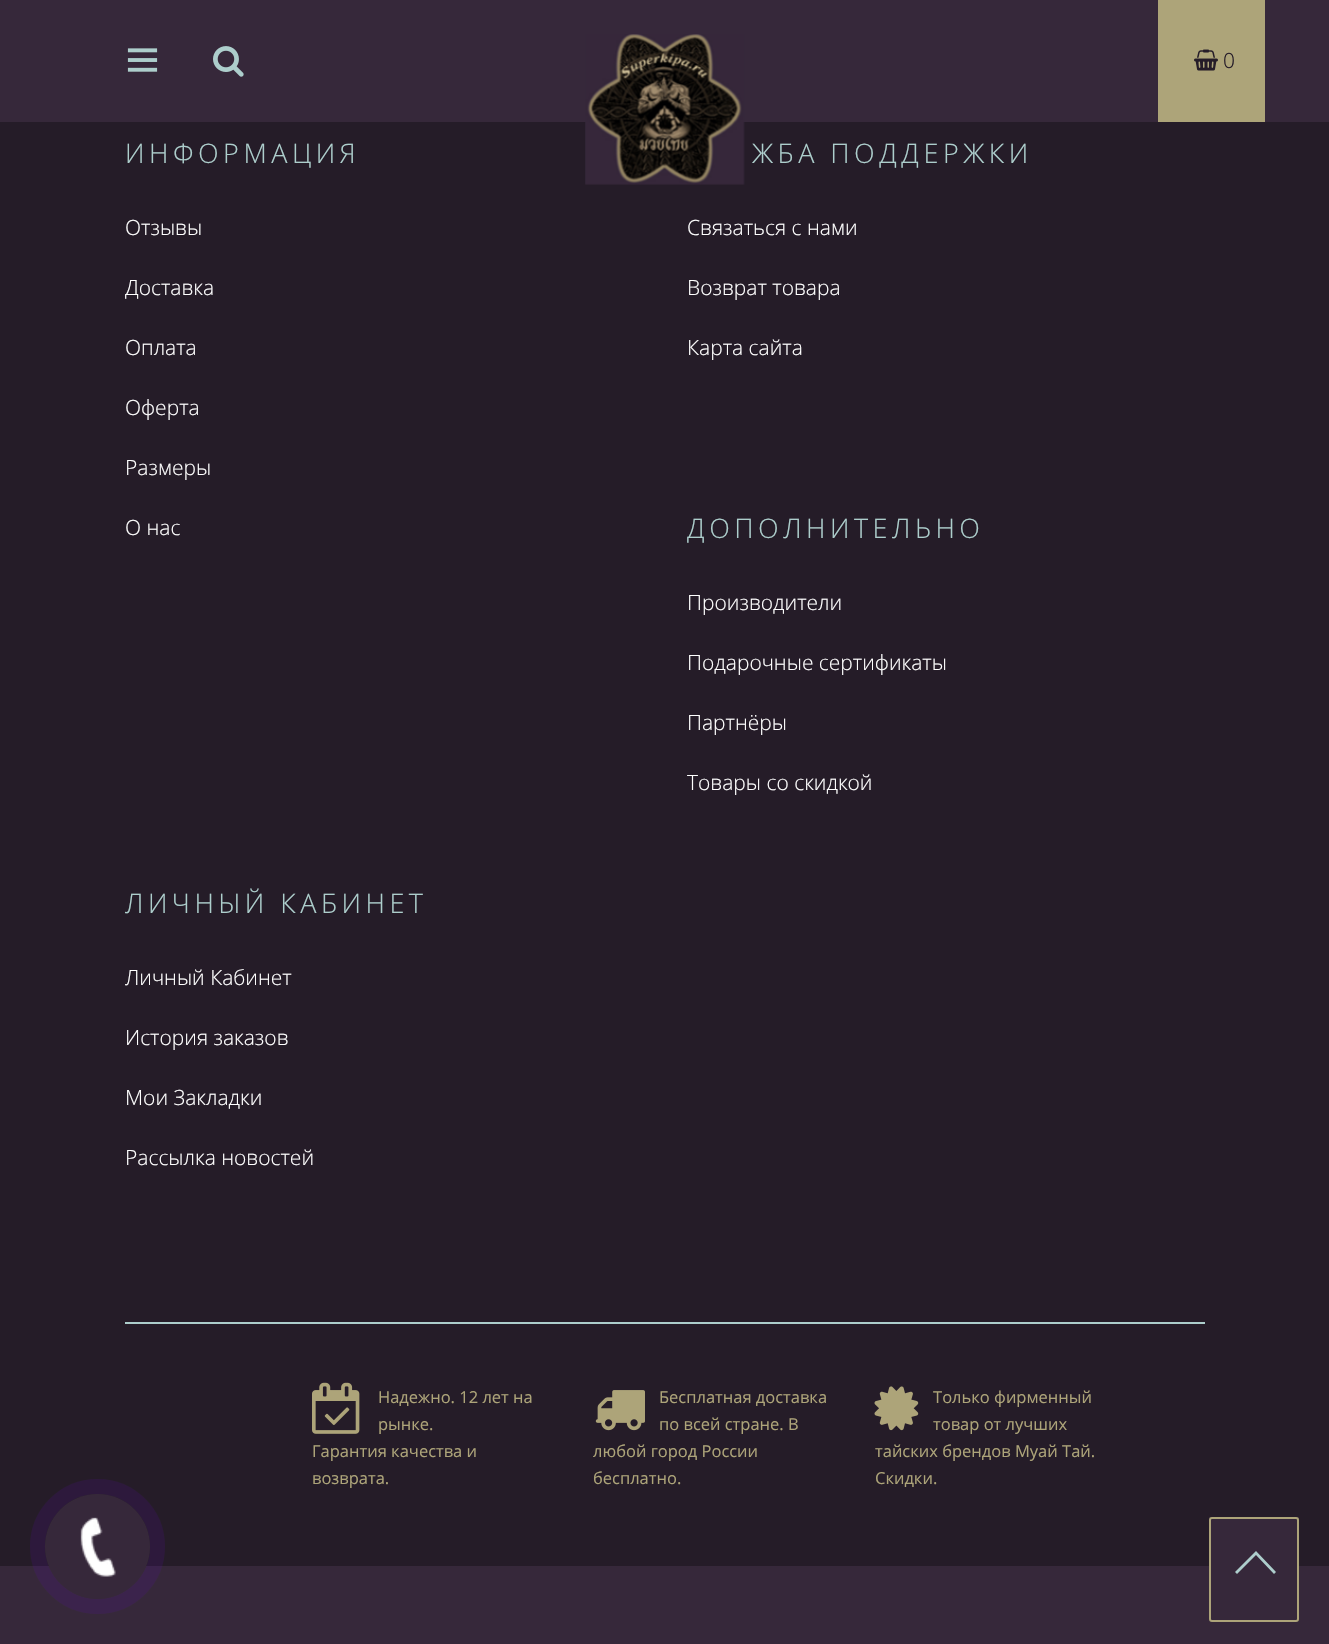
void draw(SkCanvas* canvas) {
	SkPaint fill;
	fill.setAntiAlias(true);
	auto makeFont = [&](const char* family, int weight, float size, bool italic = false) {
		SkFontStyle style(weight, SkFontStyle::kNormal_Width,
			italic ? SkFontStyle::kItalic_Slant : SkFontStyle::kUpright_Slant);
		SkFont result(fontMgr->matchFamilyStyle(family, style), size);
		result.setSubpixel(true);
		return result;
	};
	auto text = [&](const char* s, float x, float y, const SkFont& font) {
		canvas->drawString(s, x, y, font, fill);
	};
	auto spacedText = [&](const char* s, float x, float y, const SkFont& font, const SkPaint& ink, float letter, float word) {
		std::vector<SkGlyphID> glyphs(font.countText(s, strlen(s), SkTextEncoding::kUTF8));
		std::vector<float> xs(glyphs.size());
		font.textToGlyphs(s, strlen(s), SkTextEncoding::kUTF8, glyphs);
		font.getXPos(glyphs, xs, x);
		float extra = 0;
		for (size_t i = 0; i < glyphs.size(); i++) {
			xs[i] += extra;
			extra += letter + word * (glyphs[i] == font.unicharToGlyph(' '));
		}
		canvas->drawTextBlob(SkTextBlob::MakeFromPosHGlyphs(glyphs, xs, y, font), 0, 0, ink);
	};
	auto box = [&](float l, float t, float r, float b) {
		canvas->drawRect(SkRect::MakeLTRB(l, t, r, b), fill);
	};
	auto picture = [&](const char* path, float l, float t, float r, float b) {
		auto image = SkImages::DeferredFromEncodedData(SkData::MakeFromFileName(path));
		canvas->drawImageRect(image, SkRect::MakeLTRB(l, t, r, b), SkSamplingOptions());
	};
	canvas->clear(0xFF251C28);
	fill.setColor(0xFF36283A);
	box(0, 0, 1329, 122);
	picture("image0.png", 127, 48, 158, 72);
	picture("image1.png", 213, 46, 244, 77);
	picture("image2.png", 585, 34, 745, 185);
	fill.setColor(0xFFADA479);
	box(1158, 0, 1265, 122);
	picture("image3.png", 1194, 49, 1218, 71);
	fill.setColor(0xFFADCECC);
	box(125, 1322, 1205, 1324);
	picture("image4.png", 312, 1382, 360, 1434);
	picture("image5.png", 595, 1390, 645, 1431);
	picture("image6.png", 874, 1386, 919, 1431);
	fill.setColor(0xFF36283A);
	box(0, 1566, 1329, 1644);
	fill.setStyle(SkPaint::kStroke_Style);
	fill.setStrokeWidth(15);
	fill.setColor(0x265904AF);
	canvas->drawCircle(97.5f, 1546.5f, 60, fill);
	fill.setStyle(SkPaint::kFill_Style);
	fill.setColor(0xFF36283A);
	canvas->drawCircle(97.5f, 1546.5f, 52.5f, fill);
	picture("image7.png", 80, 1517, 116, 1577);
	box(1209, 1517, 1299, 1566);
	fill.setStyle(SkPaint::kStroke_Style);
	fill.setStrokeWidth(2);
	fill.setColor(0xFFADA479);
	canvas->drawRoundRect(SkRect::MakeLTRB(1210, 1518, 1298, 1621), 2, 2, fill);
	fill.setStyle(SkPaint::kFill_Style);
	fill.setColor(0xFFADCECC);
	canvas->drawPath(SkPathBuilder().moveTo(1276, 1572).lineTo(1274, 1574).lineTo(1256, 1555).lineTo(1237, 1574).lineTo(1235, 1572).lineTo(1256, 1551).close().detach(), fill);
	auto font1 = makeFont("Open Sans", 300, 21);
	fill.setColor(0xFF251C28);
	text("0", 1223, 68, font1);
	auto font2 = makeFont("Open Sans", 300, 27);
	fill.setColor(0xFFADCECC);
	spacedText("ИНФОРМАЦИЯ", 125, 163, font2, fill, 4.5f, 0);
	fill.setColor(0xFFFFFFFF);
	text("Отзывы", 125, 235, font1);
	text("Доставка", 125, 295, font1);
	text("Оплата", 125, 355, font1);
	text("Оферта", 125, 415, font1);
	text("Размеры", 125, 475, font1);
	text("О нас", 125, 535, font1);
	fill.setColor(0xFFADCECC);
	spacedText("ЖБА ПОДДЕРЖКИ", 752, 163, font2, fill, 4.5f, 0);
	fill.setColor(0xFFFFFFFF);
	text("Связаться с нами", 687, 235, font1);
	text("Возврат товара", 687, 295, font1);
	text("Карта сайта", 687, 355, font1);
	fill.setColor(0xFFADCECC);
	spacedText("ДОПОЛНИТЕЛЬНО", 687, 538, font2, fill, 4.5f, 0);
	fill.setColor(0xFFFFFFFF);
	text("Производители", 687, 610, font1);
	text("Подарочные сертификаты", 687, 670, font1);
	text("Партнёры", 687, 730, font1);
	text("Товары со скидкой", 687, 790, font1);
	fill.setColor(0xFFADCECC);
	spacedText("ЛИЧНЫЙ КАБИНЕТ", 125, 913, font2, fill, 4.5f, 0);
	fill.setColor(0xFFFFFFFF);
	text("Личный Кабинет", 125, 985, font1);
	text("История заказов", 125, 1045, font1);
	text("Мои Закладки", 125, 1105, font1);
	text("Рассылка новостей", 125, 1165, font1);
	auto font3 = makeFont("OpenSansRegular", 400, 16.5f);
	fill.setColor(0xFFADA479);
	text("Надежно. 12 лет на", 378, 1403, font3);
	text("рынке.", 378, 1430, font3);
	text("Гарантия качества и", 312, 1457, font3);
	text("возврата.", 312, 1484, font3);
	text("Бесплатная доставка", 659, 1403, font3);
	text("по всей стране. В", 659, 1430, font3);
	text("любой город России", 593, 1457, font3);
	text("бесплатно.", 593, 1484, font3);
	text("Только фирменный", 933, 1403, font3);
	text("товар от лучших", 933, 1430, font3);
	text("тайских брендов Муай Тай.", 875, 1457, font3);
	text("Скидки.", 875, 1484, font3);
}
